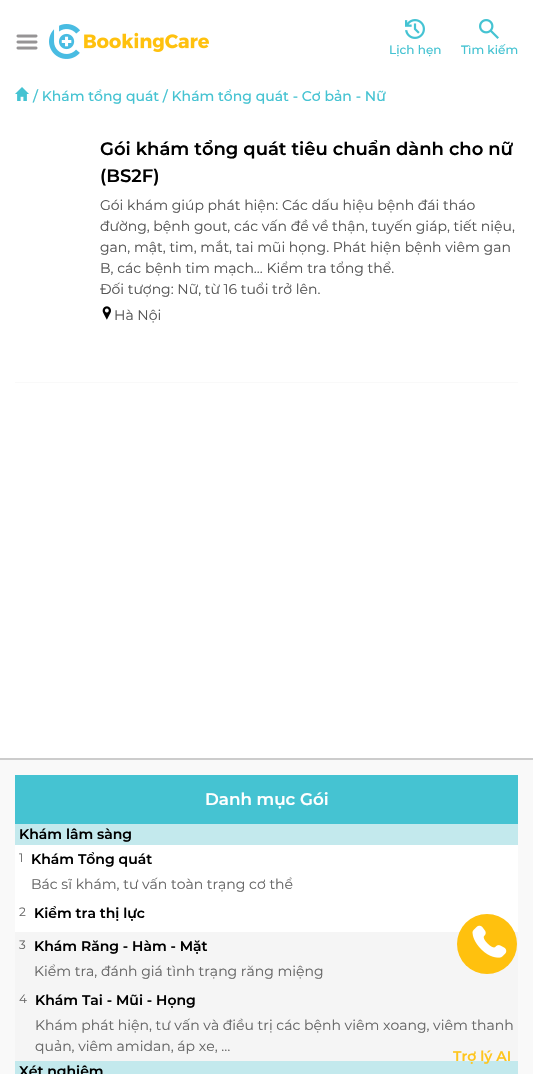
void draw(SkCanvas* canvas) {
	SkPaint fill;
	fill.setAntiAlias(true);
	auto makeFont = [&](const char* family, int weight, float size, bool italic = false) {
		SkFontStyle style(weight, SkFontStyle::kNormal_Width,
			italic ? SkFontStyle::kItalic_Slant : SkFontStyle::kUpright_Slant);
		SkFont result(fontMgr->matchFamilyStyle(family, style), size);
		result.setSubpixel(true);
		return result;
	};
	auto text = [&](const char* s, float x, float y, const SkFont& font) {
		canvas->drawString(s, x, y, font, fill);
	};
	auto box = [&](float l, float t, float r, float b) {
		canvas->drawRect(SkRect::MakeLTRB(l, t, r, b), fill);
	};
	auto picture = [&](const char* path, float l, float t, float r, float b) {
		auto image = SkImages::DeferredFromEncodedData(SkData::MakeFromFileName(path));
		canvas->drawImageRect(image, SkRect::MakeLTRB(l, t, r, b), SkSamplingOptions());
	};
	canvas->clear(0xFFFFFFFF);
	picture("image0.png", 16, 34, 38, 50);
	picture("image1.png", 49, 24, 209, 59);
	picture("image2.png", 405, 19, 425, 39);
	picture("image3.png", 479, 19, 499, 39);
	picture("image4.png", 15, 87, 29, 101);
	picture("image5.png", 102, 306, 111, 320);
	fill.setColor(0xFFF9F9F9);
	box(15, 382, 518, 383);
	fill.setColor(0xFFCCCCCC);
	box(0, 758, 533, 760);
	fill.setColor(0xFFF9F9F9);
	box(0, 760, 533, 1074);
	fill.setColor(0xFF45C3D2);
	box(15, 775, 518, 824);
	fill.setColor(0xFFC3E9ED);
	box(15, 824, 518, 845);
	fill.setColor(0xFFFFFFFF);
	box(15, 845, 518, 932);
	fill.setColor(0xFFF5F5F5);
	box(15, 932, 518, 1061);
	fill.setColor(0xFFC3E9ED);
	box(15, 1061, 518, 1074);
	fill.setColor(0xFFFFC10E);
	canvas->drawCircle(487, 944, 30, fill);
	picture("image6.png", 472, 925, 507, 958);
	auto font1 = makeFont("Montserrat", 500, 12);
	fill.setColor(0xFF45C3D2);
	text("Lịch hẹn", 389, 54, font1);
	text("Tìm kiếm", 461, 54, font1);
	auto font2 = makeFont("Montserrat", 500, 14);
	text("/ Khám tổng quát / Khám tổng quát - Cơ bản - Nữ", 33, 101, font2);
	auto font3 = makeFont("Montserrat", 600, 18);
	fill.setColor(0xFF000000);
	text("Gói khám tổng quát tiêu chuẩn dành cho nữ", 100, 155, font3);
	text("(BS2F)", 100, 182, font3);
	auto font4 = makeFont("Montserrat", 400, 14);
	fill.setColor(0xFF555555);
	text("Gói khám giúp phát hiện: Các dấu hiệu bệnh đái tháo", 100, 210, font4);
	text("đường, bệnh gout, các vấn đề về thận, tuyến giáp, tiết niệu,", 100, 231, font4);
	text("gan, mật, tim, mắt, tai mũi họng. Phát hiện bệnh viêm gan", 100, 252, font4);
	text("B, các bệnh tim mạch... Kiểm tra tổng thể.", 100, 273, font4);
	text("Đối tượng: Nữ, từ 16 tuổi trở lên.", 100, 294, font4);
	text("Hà Nội", 114, 320, font4);
	auto font5 = makeFont("Montserrat", 600, 16.75f);
	fill.setColor(0xFFFFFFFF);
	text("Danh mục Gói", 205, 805, font5);
	auto font6 = makeFont("Montserrat", 600, 14);
	fill.setColor(0xFF000000);
	text("Khám lâm sàng", 19, 839, font6);
	auto font7 = makeFont("Montserrat", 400, 12);
	fill.setColor(0xFF666666);
	text("1", 19, 862, font7);
	fill.setColor(0xFF000000);
	text("Khám Tổng quát", 31, 864, font6);
	fill.setColor(0xFF666666);
	text("Bác sĩ khám, tư vấn toàn trạng cơ thể", 31, 889, font4);
	text("2", 19, 916, font7);
	fill.setColor(0xFF000000);
	text("Kiểm tra thị lực", 34, 918, font6);
	fill.setColor(0xFF666666);
	text("3", 19, 949, font7);
	fill.setColor(0xFF000000);
	text("Khám Răng - Hàm - Mặt", 34, 951, font6);
	fill.setColor(0xFF666666);
	text("Kiểm tra, đánh giá tình trạng răng miệng", 34, 976, font4);
	text("4", 19, 1003, font7);
	fill.setColor(0xFF000000);
	text("Khám Tai - Mũi - Họng", 35, 1005, font6);
	fill.setColor(0xFF666666);
	text("Khám phát hiện, tư vấn và điều trị các bệnh viêm xoang, viêm thanh", 35, 1030, font4);
	text("quản, viêm amidan, áp xe, …", 35, 1051, font4);
	fill.setColor(0xFF000000);
	text("Xét nghiệm", 19, 1076, font6);
	fill.setColor(0xFFFEC51D);
	text("Trợ lý AI", 453, 1061, font6);
}
